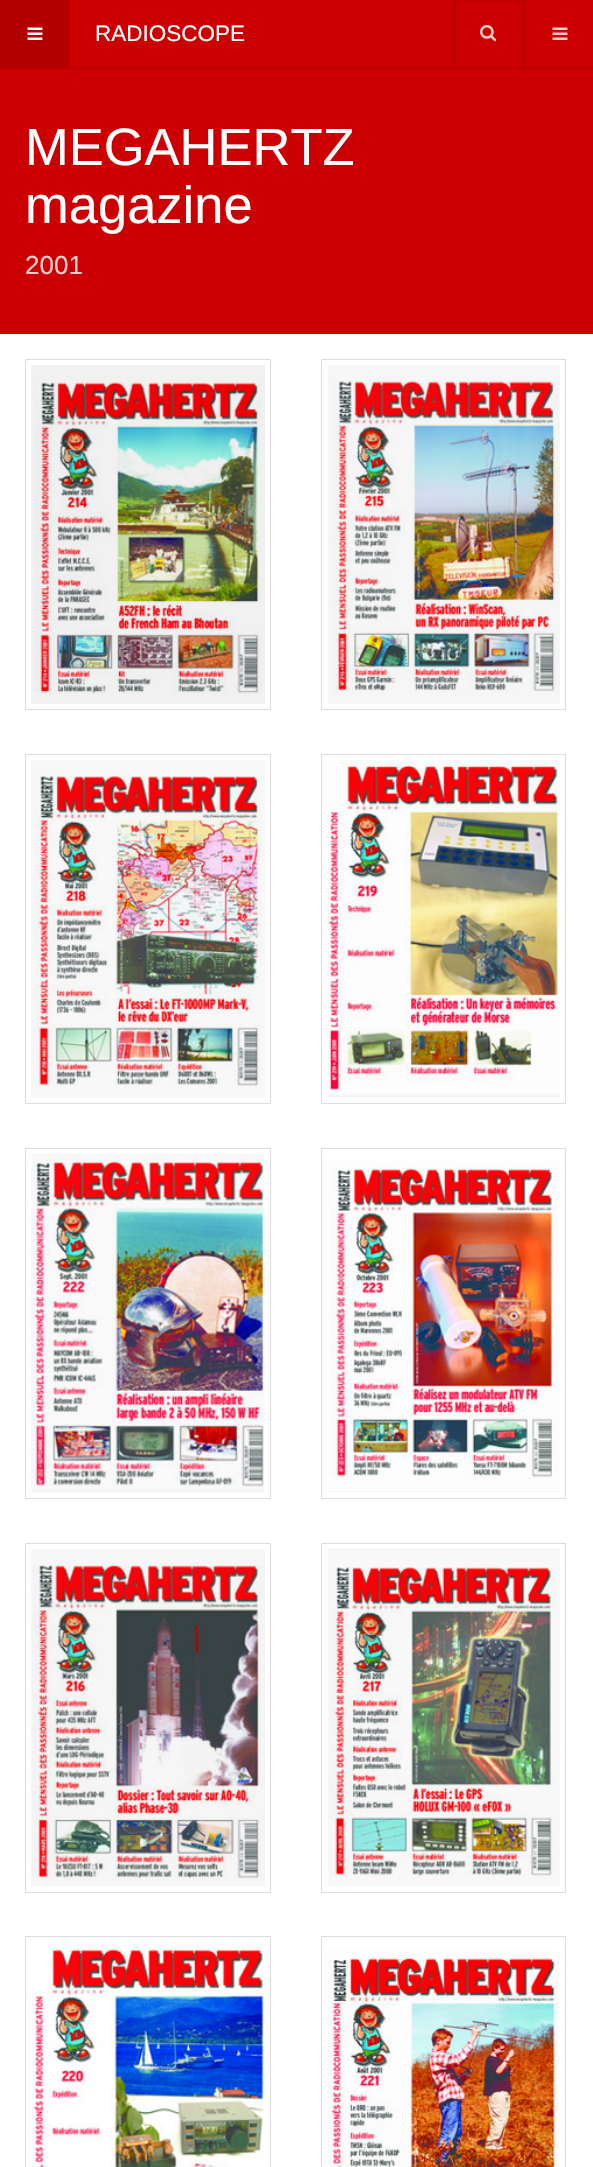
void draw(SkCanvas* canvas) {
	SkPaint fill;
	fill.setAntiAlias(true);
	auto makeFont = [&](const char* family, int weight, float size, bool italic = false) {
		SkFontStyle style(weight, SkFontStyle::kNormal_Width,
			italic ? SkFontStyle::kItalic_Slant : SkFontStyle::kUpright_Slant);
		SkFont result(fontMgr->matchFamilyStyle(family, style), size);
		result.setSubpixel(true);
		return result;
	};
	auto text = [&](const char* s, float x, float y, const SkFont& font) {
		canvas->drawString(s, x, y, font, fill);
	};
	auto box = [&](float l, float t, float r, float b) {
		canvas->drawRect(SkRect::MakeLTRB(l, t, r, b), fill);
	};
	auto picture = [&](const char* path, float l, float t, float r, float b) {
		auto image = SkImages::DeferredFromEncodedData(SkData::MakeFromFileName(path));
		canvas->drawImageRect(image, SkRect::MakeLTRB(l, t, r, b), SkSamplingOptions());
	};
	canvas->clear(0xFFFFFFFF);
	fill.setColor(0xFFCC0000);
	box(70, 0, 593, 68);
	fill.setColor(0xFFB30000);
	box(70, 68, 593, 69);
	box(0, 0, 70, 69);
	picture("image0.png", 27, 27, 43, 40);
	box(524, 0, 525, 68);
	box(454, 0, 455, 68);
	fill.setColor(0xFFBD0000);
	box(455, 0, 524, 1);
	picture("image1.png", 480, 25, 497, 42);
	picture("image2.png", 552, 27, 568, 40);
	fill.setColor(0xFFCC0000);
	box(0, 69, 593, 334);
	fill.setStyle(SkPaint::kStroke_Style);
	fill.setStrokeWidth(1);
	fill.setColor(0xFFDDDDDD);
	canvas->drawRect(SkRect::MakeLTRB(25.5f, 359.5f, 270.5f, 709.5f), fill);
	picture("image3.png", 31, 365, 265, 704);
	canvas->drawRect(SkRect::MakeLTRB(25.5f, 754.5f, 270.5f, 1103.5f), fill);
	picture("image4.png", 31, 760, 265, 1098);
	canvas->drawRect(SkRect::MakeLTRB(25.5f, 1148.5f, 270.5f, 1498.5f), fill);
	picture("image5.png", 31, 1154, 265, 1493);
	canvas->drawRect(SkRect::MakeLTRB(321.5f, 359.5f, 565.5f, 709.5f), fill);
	picture("image6.png", 327, 365, 560, 704);
	canvas->drawRect(SkRect::MakeLTRB(321.5f, 754.5f, 565.5f, 1103.5f), fill);
	picture("image7.png", 327, 760, 560, 1098);
	canvas->drawRect(SkRect::MakeLTRB(321.5f, 1148.5f, 565.5f, 1498.5f), fill);
	picture("image8.png", 327, 1161, 560, 1493);
	canvas->drawRect(SkRect::MakeLTRB(25.5f, 1543.5f, 270.5f, 1892.5f), fill);
	picture("image9.png", 31, 1549, 265, 1886);
	canvas->drawRect(SkRect::MakeLTRB(25.5f, 1936.5f, 270.5f, 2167.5f), fill);
	picture("image10.png", 31, 1942, 264, 2167);
	canvas->drawRect(SkRect::MakeLTRB(321.5f, 1543.5f, 565.5f, 1892.5f), fill);
	picture("image11.png", 327, 1549, 560, 1886);
	canvas->drawRect(SkRect::MakeLTRB(321.5f, 1936.5f, 565.5f, 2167.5f), fill);
	picture("image12.png", 327, 1950, 559, 2167);
	auto font1 = makeFont("Liberation Sans", 400, 22.5f);
	fill.setStyle(SkPaint::kFill_Style);
	fill.setColor(0xFFFFFFFF);
	text("RADIOSCOPE", 95, 41, font1);
	auto font2 = makeFont("Liberation Sans", 400, 52.5f);
	text("MEGAHERTZ", 25, 165, font2);
	text("magazine", 25, 223, font2);
	auto font3 = makeFont("Liberation Sans", 400, 26);
	fill.setColor(0xFFFFCCCC);
	text("2001", 25, 274, font3);
}
